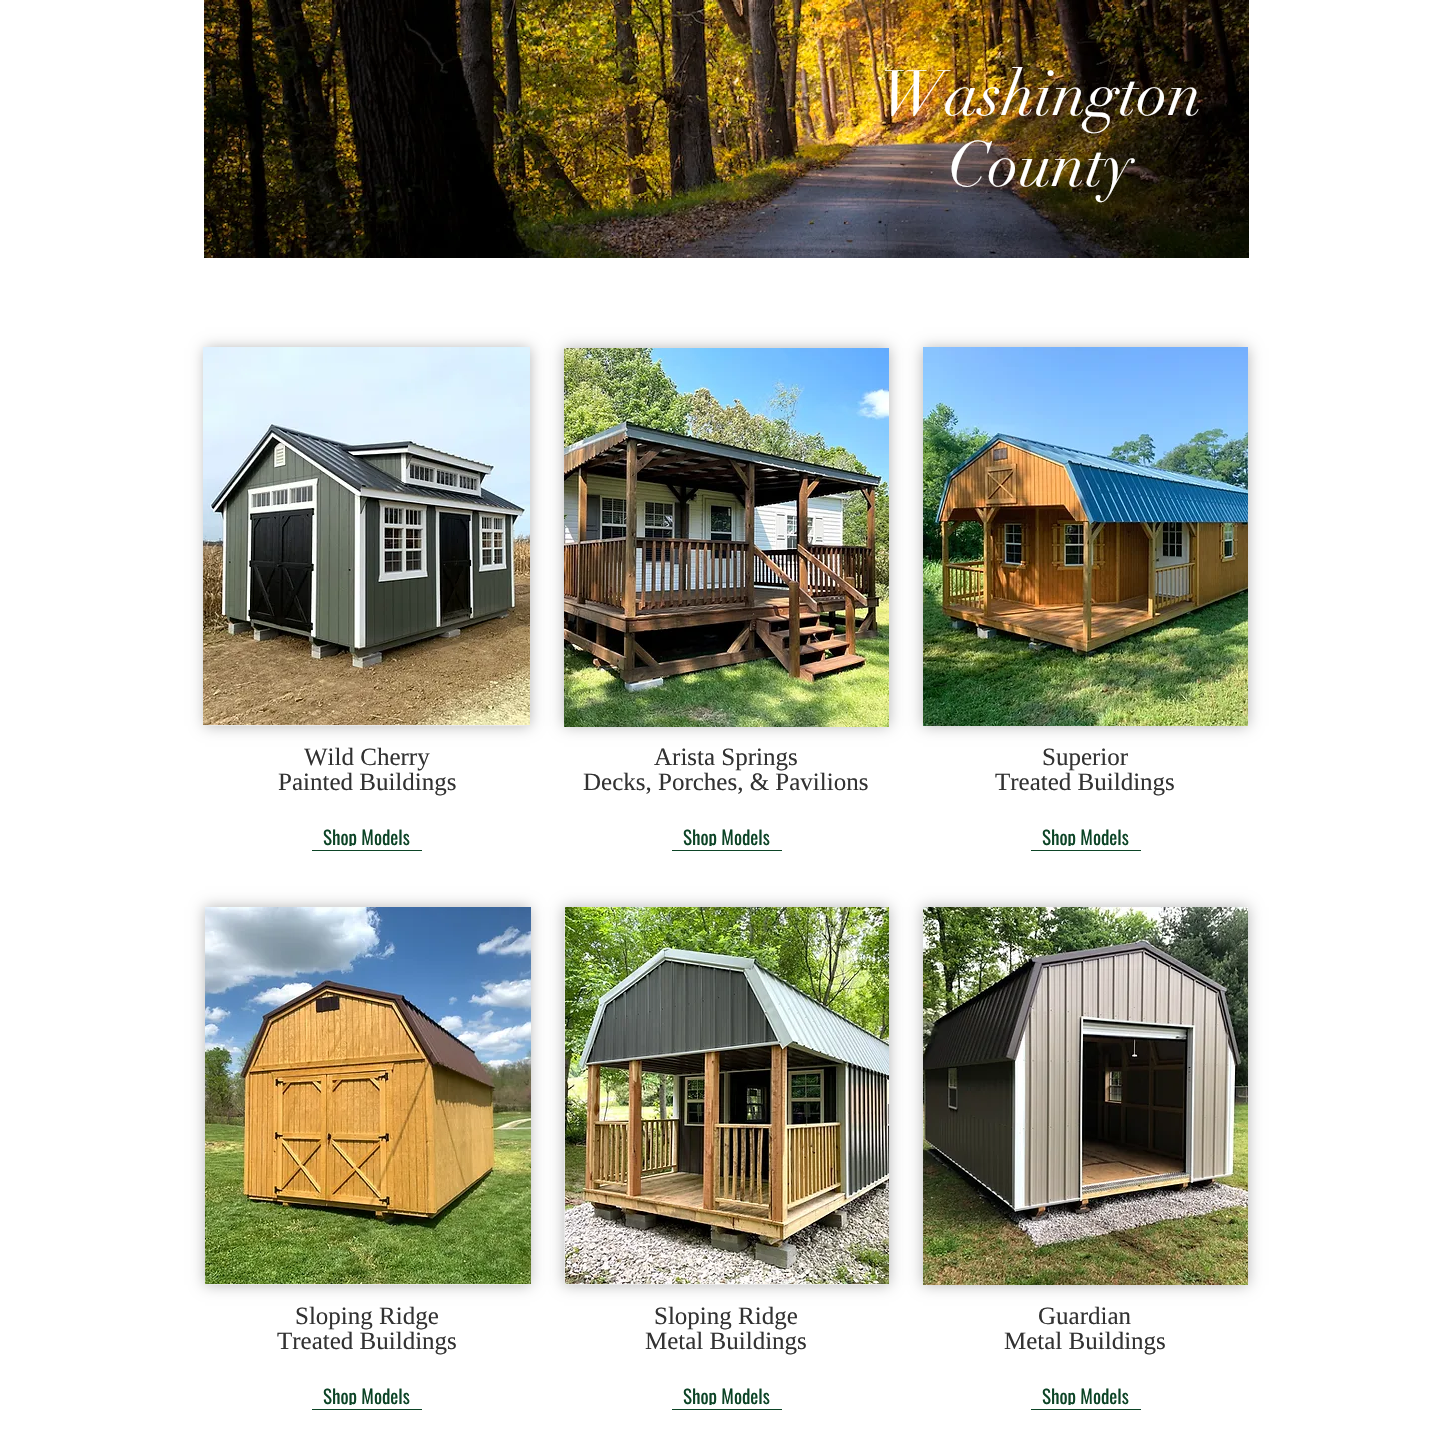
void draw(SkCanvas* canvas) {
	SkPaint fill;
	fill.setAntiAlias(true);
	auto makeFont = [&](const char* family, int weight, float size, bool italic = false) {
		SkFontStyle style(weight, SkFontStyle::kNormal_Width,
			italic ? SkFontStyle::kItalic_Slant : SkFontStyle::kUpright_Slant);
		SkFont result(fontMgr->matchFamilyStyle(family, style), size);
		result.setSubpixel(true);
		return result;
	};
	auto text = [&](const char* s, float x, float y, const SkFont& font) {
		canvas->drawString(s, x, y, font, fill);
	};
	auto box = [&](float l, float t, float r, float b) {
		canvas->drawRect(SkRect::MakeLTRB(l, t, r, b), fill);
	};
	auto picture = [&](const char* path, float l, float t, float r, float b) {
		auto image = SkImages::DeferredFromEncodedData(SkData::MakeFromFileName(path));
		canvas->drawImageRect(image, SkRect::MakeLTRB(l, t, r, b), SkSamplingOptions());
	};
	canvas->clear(0xFFFFFFFF);
	picture("image0.png", 204, 0, 1249, 258);
	fill.setColor(0x4A000000);
	fill.setMaskFilter(SkMaskFilter::MakeBlur(kNormal_SkBlurStyle, 7));
	canvas->drawRect(SkRect::MakeLTRB(205, 348, 530, 726), fill);
	fill.setMaskFilter(nullptr);
	fill.setColor(0xFFE8E8E8);
	box(205, 725, 530, 726);
	fill.setColor(0x4A000000);
	fill.setMaskFilter(SkMaskFilter::MakeBlur(kNormal_SkBlurStyle, 7));
	canvas->drawRect(SkRect::MakeLTRB(564, 348, 889, 726), fill);
	fill.setMaskFilter(nullptr);
	fill.setMaskFilter(SkMaskFilter::MakeBlur(kNormal_SkBlurStyle, 7));
	canvas->drawRect(SkRect::MakeLTRB(923, 348, 1248, 726), fill);
	fill.setMaskFilter(nullptr);
	picture("image1.png", 203, 347, 530, 725);
	picture("image2.png", 564, 348, 889, 727);
	picture("image3.png", 923, 347, 1248, 726);
	fill.setColor(0xFF0C4426);
	box(312, 850, 422, 851);
	box(672, 850, 782, 851);
	box(1031, 850, 1141, 851);
	fill.setColor(0x4A000000);
	fill.setMaskFilter(SkMaskFilter::MakeBlur(kNormal_SkBlurStyle, 7));
	canvas->drawRect(SkRect::MakeLTRB(205, 907, 530, 1285), fill);
	fill.setMaskFilter(nullptr);
	fill.setColor(0xFFE8E8E8);
	box(205, 1284, 530, 1285);
	fill.setColor(0x4A000000);
	fill.setMaskFilter(SkMaskFilter::MakeBlur(kNormal_SkBlurStyle, 7));
	canvas->drawRect(SkRect::MakeLTRB(564, 907, 889, 1285), fill);
	fill.setMaskFilter(nullptr);
	fill.setColor(0xFFE8E8E8);
	box(564, 907, 889, 1285);
	picture("image4.png", 565, 907, 889, 1284);
	fill.setColor(0x4A000000);
	fill.setMaskFilter(SkMaskFilter::MakeBlur(kNormal_SkBlurStyle, 7));
	canvas->drawRect(SkRect::MakeLTRB(923, 907, 1248, 1285), fill);
	fill.setMaskFilter(nullptr);
	picture("image5.png", 923, 907, 1248, 1285);
	picture("image6.png", 205, 907, 531, 1284);
	fill.setColor(0xFF0C4426);
	box(312, 1409, 422, 1410);
	box(672, 1409, 782, 1410);
	box(1031, 1409, 1141, 1410);
	auto font1 = makeFont("didot", 400, 63);
	fill.setColor(0xFFFFFFFF);
	text("Washington", 880, 115, font1);
	text("County", 948, 186, font1);
	auto font2 = makeFont("Liberation Serif", 400, 25);
	fill.setColor(0xFF323232);
	text("Wild Cherry", 304, 765, font2);
	text("Painted Buildings", 278, 790, font2);
	text("Arista Springs", 654, 765, font2);
	text("Decks, Porches, & Pavilions", 583, 790, font2);
	text("Superior", 1042, 765, font2);
	text("Treated Buildings", 995, 790, font2);
	canvas->save();
	canvas->clipRect(SkRect::MakeLTRB(323, 825, 410, 846));
	auto font3 = makeFont("Oswald", 400, 19);
	fill.setColor(0xFF0C4426);
	text("Shop Models", 323, 845, font3);
	canvas->restore();
	canvas->save();
	canvas->clipRect(SkRect::MakeLTRB(683, 825, 770, 846));
	text("Shop Models", 683, 845, font3);
	canvas->restore();
	canvas->save();
	canvas->clipRect(SkRect::MakeLTRB(1042, 825, 1129, 846));
	text("Shop Models", 1042, 845, font3);
	canvas->restore();
	fill.setColor(0xFF323232);
	text("Sloping Ridge", 295, 1324, font2);
	text("Treated Buildings", 277, 1349, font2);
	text("Sloping Ridge", 654, 1324, font2);
	text("Metal Buildings", 645, 1349, font2);
	text("Guardian", 1038, 1324, font2);
	text("Metal Buildings", 1004, 1349, font2);
	canvas->save();
	canvas->clipRect(SkRect::MakeLTRB(323, 1384, 410, 1405));
	fill.setColor(0xFF0C4426);
	text("Shop Models", 323, 1404, font3);
	canvas->restore();
	canvas->save();
	canvas->clipRect(SkRect::MakeLTRB(683, 1384, 770, 1405));
	text("Shop Models", 683, 1404, font3);
	canvas->restore();
	canvas->save();
	canvas->clipRect(SkRect::MakeLTRB(1042, 1384, 1129, 1405));
	text("Shop Models", 1042, 1404, font3);
	canvas->restore();
}
